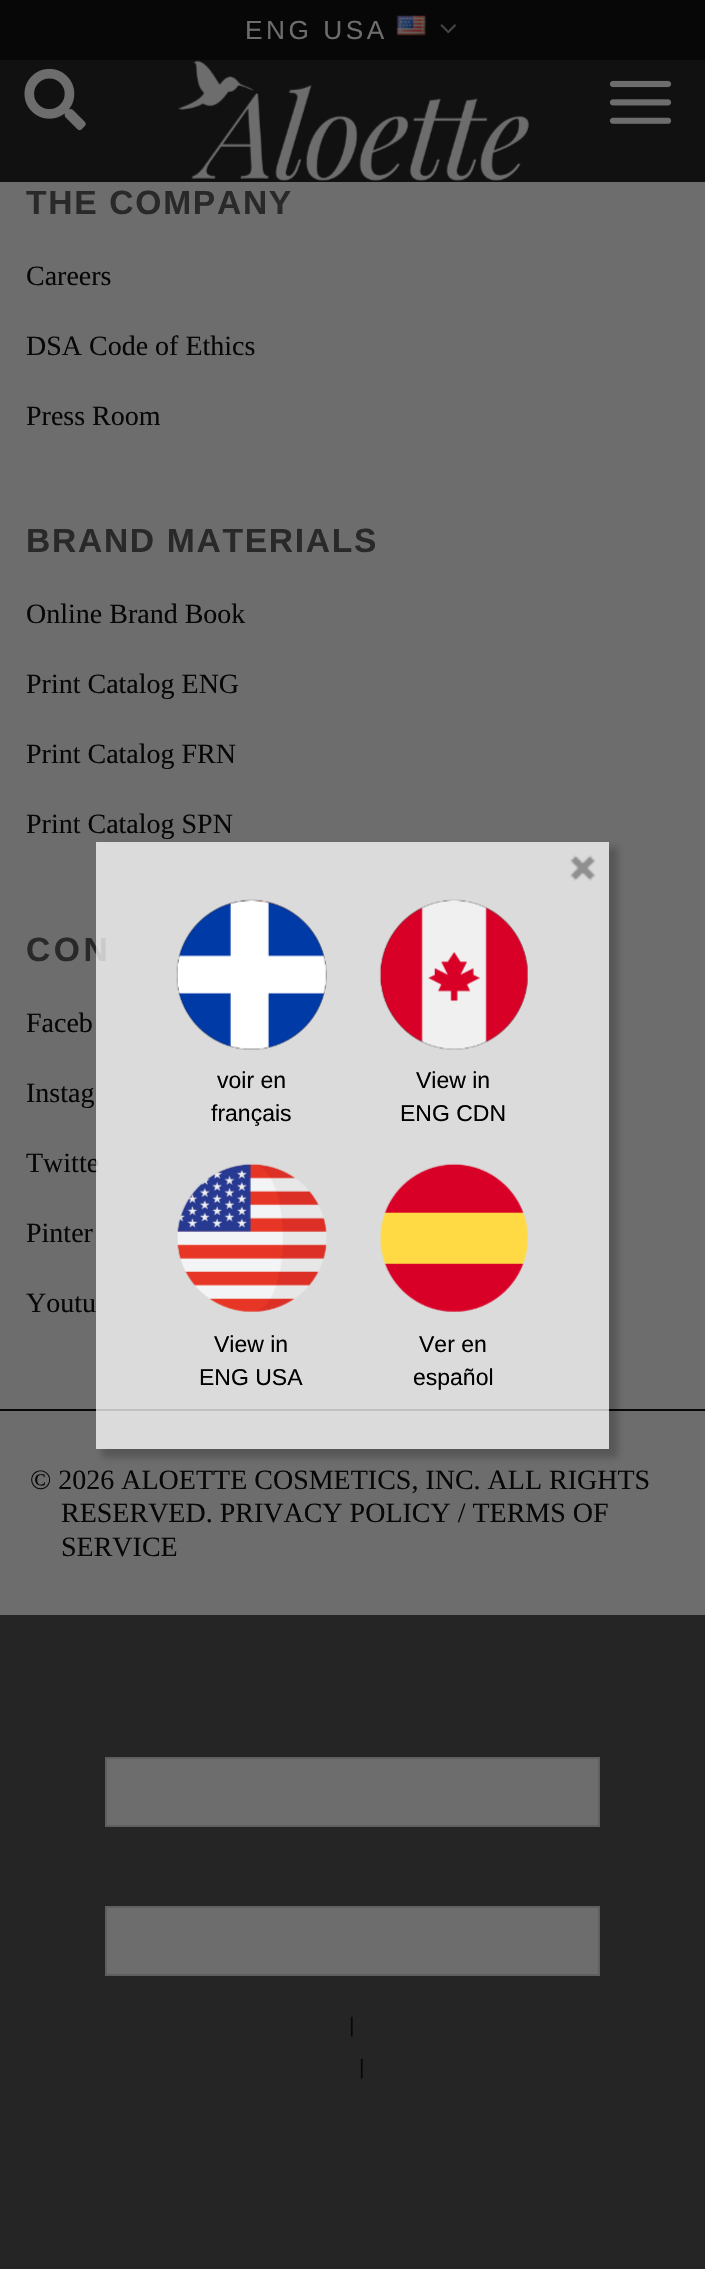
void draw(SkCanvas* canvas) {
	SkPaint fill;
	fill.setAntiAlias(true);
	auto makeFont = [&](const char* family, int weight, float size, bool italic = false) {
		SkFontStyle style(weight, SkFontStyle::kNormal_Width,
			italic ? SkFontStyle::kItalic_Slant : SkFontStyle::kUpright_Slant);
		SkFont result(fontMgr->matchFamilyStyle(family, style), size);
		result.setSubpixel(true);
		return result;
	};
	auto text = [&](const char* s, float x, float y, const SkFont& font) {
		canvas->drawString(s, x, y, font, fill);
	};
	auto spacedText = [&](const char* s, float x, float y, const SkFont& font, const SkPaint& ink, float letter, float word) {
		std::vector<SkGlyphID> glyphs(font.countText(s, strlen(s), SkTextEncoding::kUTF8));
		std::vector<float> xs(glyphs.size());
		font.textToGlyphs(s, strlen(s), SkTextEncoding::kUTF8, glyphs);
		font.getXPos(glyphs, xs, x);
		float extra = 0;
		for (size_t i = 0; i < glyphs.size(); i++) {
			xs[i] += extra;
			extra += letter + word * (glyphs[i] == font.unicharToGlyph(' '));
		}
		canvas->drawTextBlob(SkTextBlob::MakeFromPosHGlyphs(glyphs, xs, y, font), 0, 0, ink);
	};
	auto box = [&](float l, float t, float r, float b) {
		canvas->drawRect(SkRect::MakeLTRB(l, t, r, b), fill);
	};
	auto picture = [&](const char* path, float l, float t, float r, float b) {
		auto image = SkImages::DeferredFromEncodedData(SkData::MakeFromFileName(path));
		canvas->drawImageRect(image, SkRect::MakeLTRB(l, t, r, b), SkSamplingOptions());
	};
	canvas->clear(0xFF252525);
	fill.setColor(0xFF6D6D6D);
	box(0, 182, 705, 1615);
	fill.setColor(0xFF111111);
	box(0, 60, 705, 182);
	fill.setColor(0xFF070707);
	box(0, 0, 705, 60);
	picture("image0.png", 396, 15, 426, 36);
	picture("image1.png", 440, 24, 456, 34);
	picture("image2.png", 24, 68, 86, 131);
	picture("image3.png", 178, 60, 529, 181);
	picture("image4.png", 609, 80, 672, 124);
	box(0, 1409, 705, 1411);
	canvas->save();
	canvas->clipPath(SkPathBuilder(SkPathFillType::kEvenOdd).moveTo(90, 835).lineTo(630, 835).lineTo(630, 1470).lineTo(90, 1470).close().moveTo(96, 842).lineTo(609, 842).lineTo(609, 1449).lineTo(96, 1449).close().detach(), true);
	fill.setColor(0x33000000);
	fill.setMaskFilter(SkMaskFilter::MakeBlur(kNormal_SkBlurStyle, 3.5f));
	canvas->drawRect(SkRect::MakeLTRB(102, 847, 618, 1458), fill);
	fill.setMaskFilter(nullptr);
	canvas->restore();
	fill.setColor(0xFF6D6D6D);
	canvas->drawRect(SkRect::MakeLTRB(106, 1758, 599, 1826), fill);
	fill.setStyle(SkPaint::kStroke_Style);
	fill.setStrokeWidth(2);
	fill.setColor(0xFF5F5F5F);
	canvas->drawRect(SkRect::MakeLTRB(106, 1758, 599, 1826), fill);
	fill.setStyle(SkPaint::kFill_Style);
	fill.setColor(0xFF6D6D6D);
	canvas->drawRect(SkRect::MakeLTRB(106, 1907, 599, 1975), fill);
	fill.setStyle(SkPaint::kStroke_Style);
	fill.setColor(0xFF5F5F5F);
	canvas->drawRect(SkRect::MakeLTRB(106, 1907, 599, 1975), fill);
	auto font1 = makeFont("Liberation Sans", 400, 26.25f);
	fill.setStyle(SkPaint::kFill_Style);
	fill.setColor(0xFF6D6D6D);
	spacedText("ENG USA", 245, 39, font1, fill, 3.5f, 0);
	auto font2 = makeFont("Liberation Sans", 700, 33.6f);
	fill.setColor(0xFF292929);
	spacedText("THE COMPANY", 26, 214, font2, fill, 1.7f, 0);
	auto font3 = makeFont("Liberation Serif", 400, 28);
	fill.setColor(0xFF070707);
	text("Careers", 26, 285, font3);
	text("DSA Code of Ethics", 26, 355, font3);
	text("Press Room", 26, 425, font3);
	fill.setColor(0xFF292929);
	spacedText("BRAND MATERIALS", 26, 552, font2, fill, 1.7f, 0);
	fill.setColor(0xFF070707);
	text("Online Brand Book", 26, 623, font3);
	text("Print Catalog ENG", 26, 693, font3);
	text("Print Catalog FRN", 26, 763, font3);
	text("Print Catalog SPN", 26, 833, font3);
	fill.setColor(0xFF292929);
	spacedText("CON", 26, 961, font2, fill, 3.5f, 0);
	fill.setColor(0xFF070707);
	text("Faceb", 26, 1032, font3);
	text("Instag", 26, 1102, font3);
	text("Twitte", 26, 1172, font3);
	text("Pinter", 26, 1242, font3);
	text("Youtu", 26, 1312, font3);
	text("© 2026 ALOETTE COSMETICS, INC. ALL RIGHTS", 30, 1489, font3);
	text("RESERVED. PRIVACY POLICY / TERMS OF", 61, 1522, font3);
	text("SERVICE", 61, 1556, font3);
	fill.setColor(0xBFFFFFFF);
	box(96, 842, 609, 1449);
	picture("image5.png", 570, 855, 596, 881);
	picture("image6.png", 176, 899, 327, 1050);
	auto font4 = makeFont("Liberation Sans", 400, 23);
	fill.setColor(0xFF000000);
	text("voir en", 217, 1088, font4);
	text("français", 211, 1121, font4);
	picture("image7.png", 379, 899, 528, 1050);
	text("View in", 416, 1088, font4);
	text("ENG CDN", 400, 1121, font4);
	picture("image8.png", 177, 1163, 327, 1312);
	text("View in", 214, 1352, font4);
	text("ENG USA", 199, 1385, font4);
	picture("image9.png", 379, 1163, 528, 1312);
	text("Ver en", 419, 1352, font4);
	text("español", 413, 1385, font4);
	auto font5 = makeFont("Liberation Sans", 400, 21);
	fill.setColor(0xFF070707);
	text("|", 349, 2032, font5);
	text("|", 359, 2074, font5);
}
